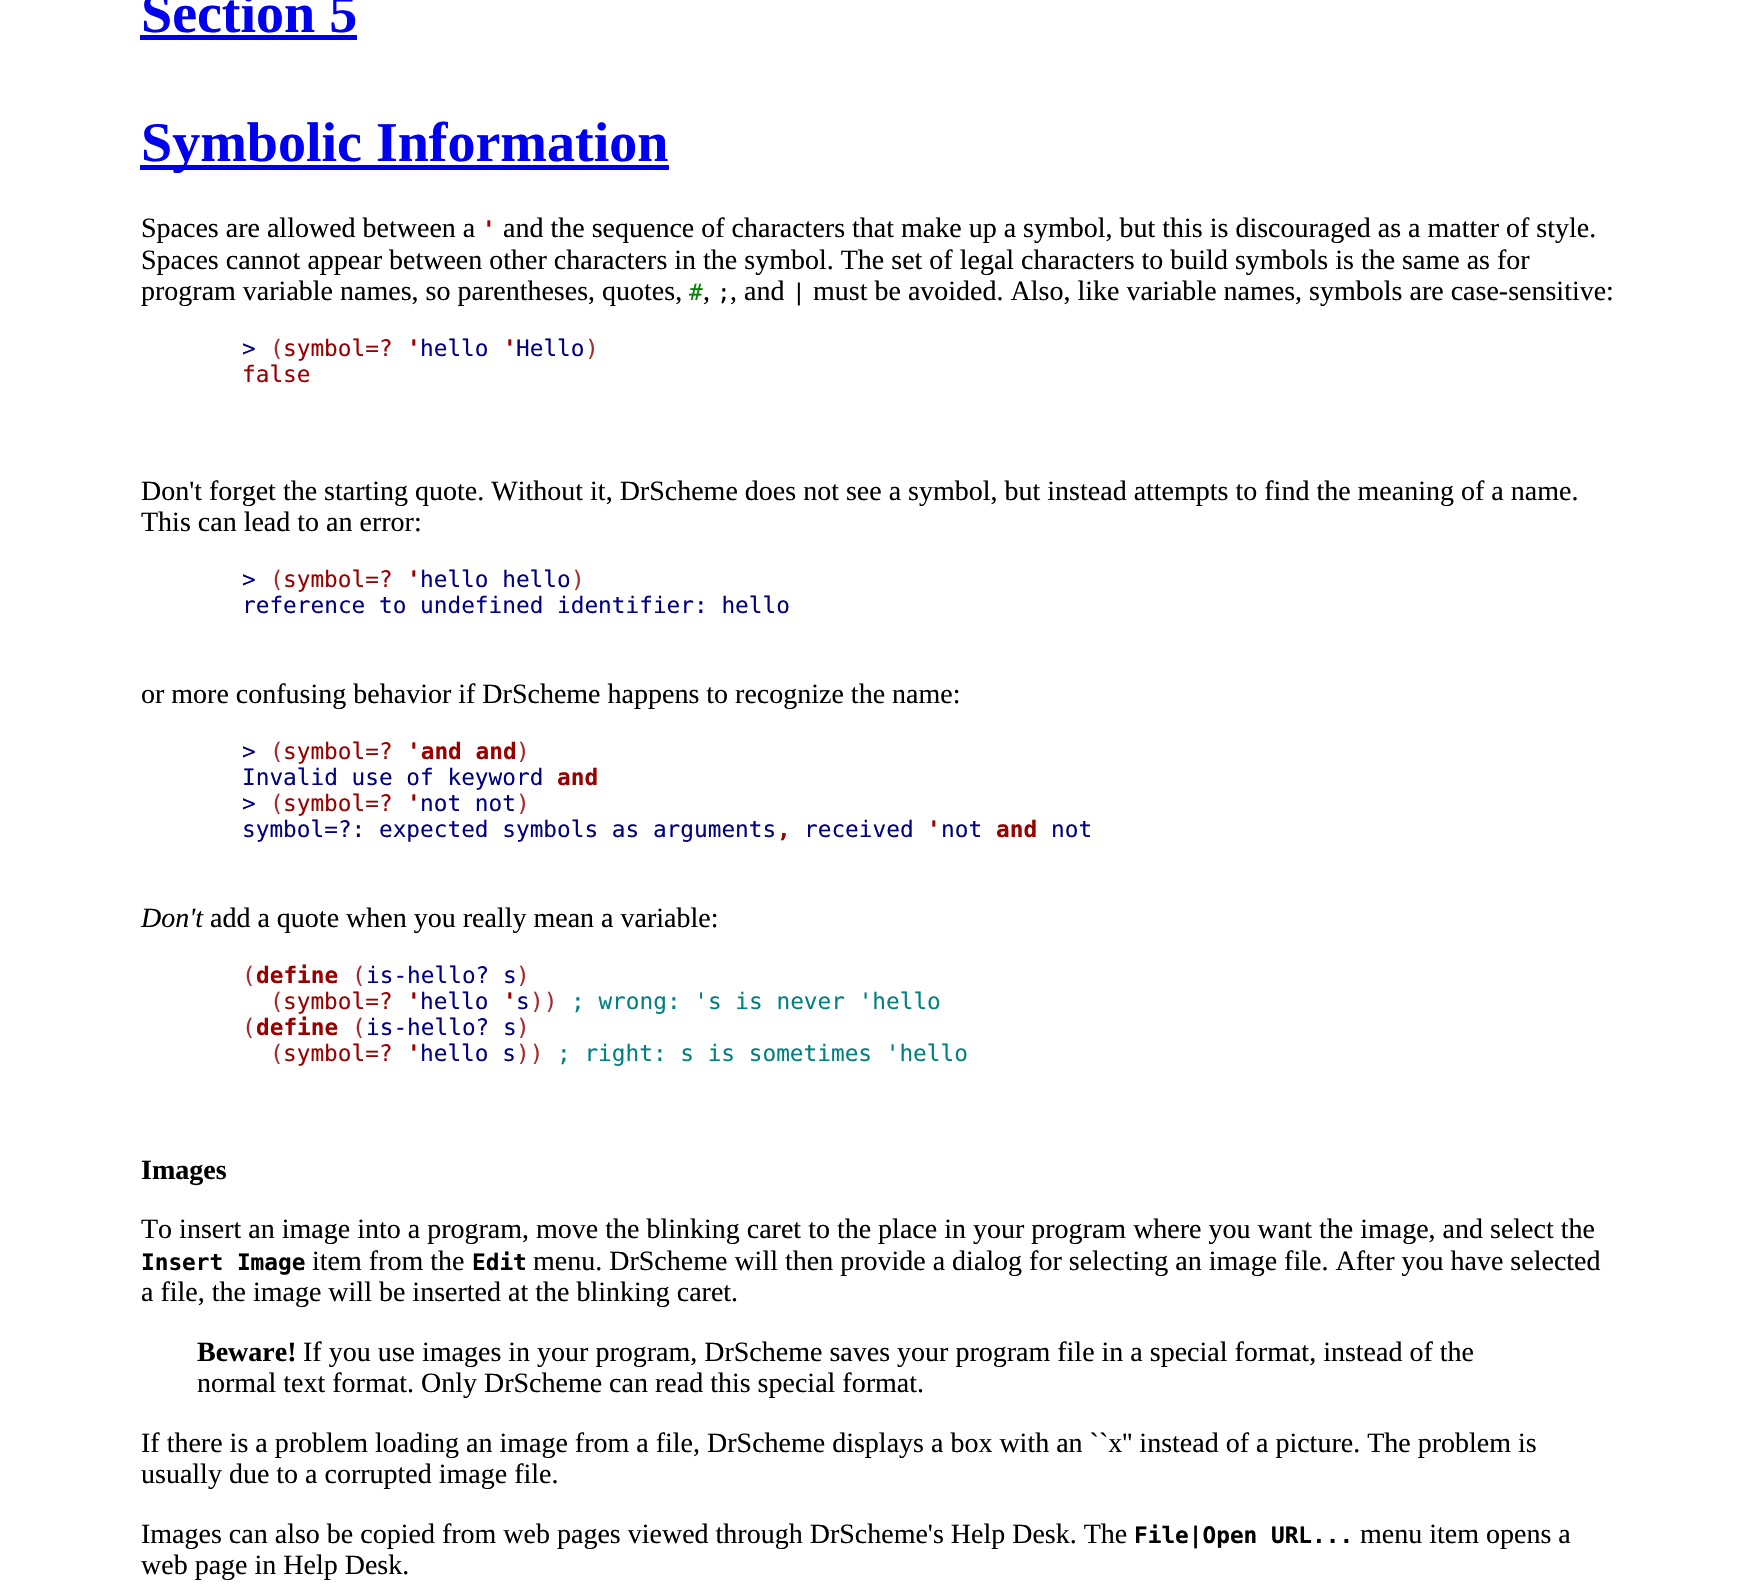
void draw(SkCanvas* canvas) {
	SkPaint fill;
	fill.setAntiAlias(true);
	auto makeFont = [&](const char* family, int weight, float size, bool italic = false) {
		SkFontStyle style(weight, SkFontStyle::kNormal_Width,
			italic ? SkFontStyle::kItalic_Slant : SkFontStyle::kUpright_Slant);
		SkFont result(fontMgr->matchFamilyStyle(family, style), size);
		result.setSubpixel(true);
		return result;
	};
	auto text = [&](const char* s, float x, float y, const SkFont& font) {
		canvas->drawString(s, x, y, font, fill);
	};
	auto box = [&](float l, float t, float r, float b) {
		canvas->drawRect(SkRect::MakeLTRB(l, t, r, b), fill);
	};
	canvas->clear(0xFFFFFFFF);
	fill.setColor(0xFF0000EE);
	box(140, 35, 357, 40);
	box(140, 165, 669, 170);
	auto font1 = makeFont("Liberation Serif", 700, 56);
	text("Section 5", 141, 32, font1);
	text("Symbolic Information", 141, 161, font1);
	auto font2 = makeFont("Liberation Serif", 400, 28);
	fill.setColor(0xFF000000);
	text("Spaces are allowed between a", 141, 237, font2);
	auto font3 = makeFont("DejaVu Sans Mono", 700, 22.75f);
	fill.setColor(0xFF990000);
	text("'", 482, 237, font3);
	fill.setColor(0xFF000000);
	text("and the sequence of characters that make up a symbol, but this is discouraged as a matter of style.", 503, 237, font2);
	text("Spaces cannot appear between other characters in the symbol. The set of legal characters to build symbols is the same as for", 141, 269, font2);
	text("program variable names, so parentheses, quotes,", 141, 300, font2);
	auto font4 = makeFont("DejaVu Sans Mono", 400, 22.75f);
	fill.setColor(0xFF008000);
	text("#", 689, 300, font4);
	fill.setColor(0xFF000000);
	text(",", 703, 300, font2);
	text(";", 717, 300, font4);
	text(", and", 730, 300, font2);
	text("|", 792, 300, font4);
	text("must be avoided. Also, like variable names, symbols are case-sensitive:", 813, 300, font2);
	fill.setColor(0xFF000080);
	text(">", 242, 356, font4);
	fill.setColor(0xFFA52A2A);
	text("(", 270, 356, font4);
	fill.setColor(0xFF990000);
	text("symbol=?", 283, 356, font4);
	text("'", 407, 356, font3);
	fill.setColor(0xFF000080);
	text("hello", 420, 356, font4);
	fill.setColor(0xFF990000);
	text("'", 503, 356, font3);
	fill.setColor(0xFF000080);
	text("Hello", 516, 356, font4);
	fill.setColor(0xFFA52A2A);
	text(")", 585, 356, font4);
	fill.setColor(0xFF990000);
	text("false", 242, 382, font4);
	fill.setColor(0xFF000000);
	text("Don't forget the starting quote. Without it, DrScheme does not see a symbol, but instead attempts to find the meaning of a name.", 141, 500, font2);
	text("This can lead to an error:", 141, 531, font2);
	fill.setColor(0xFF000080);
	text(">", 242, 587, font4);
	fill.setColor(0xFFA52A2A);
	text("(", 270, 587, font4);
	fill.setColor(0xFF990000);
	text("symbol=?", 283, 587, font4);
	text("'", 407, 587, font3);
	fill.setColor(0xFF000080);
	text("hello hello", 420, 587, font4);
	fill.setColor(0xFFA52A2A);
	text(")", 571, 587, font4);
	fill.setColor(0xFF000080);
	text("reference to undefined identifier: hello", 242, 613, font4);
	fill.setColor(0xFF000000);
	text("or more confusing behavior if DrScheme happens to recognize the name:", 141, 703, font2);
	fill.setColor(0xFF000080);
	text(">", 242, 759, font4);
	fill.setColor(0xFFA52A2A);
	text("(", 270, 759, font4);
	fill.setColor(0xFF990000);
	text("symbol=?", 283, 759, font4);
	text("'and and", 407, 759, font3);
	fill.setColor(0xFFA52A2A);
	text(")", 516, 759, font4);
	fill.setColor(0xFF000080);
	text("Invalid use of keyword", 242, 785, font4);
	fill.setColor(0xFF990000);
	text("and", 557, 785, font3);
	fill.setColor(0xFF000080);
	text(">", 242, 811, font4);
	fill.setColor(0xFFA52A2A);
	text("(", 270, 811, font4);
	fill.setColor(0xFF990000);
	text("symbol=?", 283, 811, font4);
	text("'", 407, 811, font3);
	fill.setColor(0xFF000080);
	text("not not", 420, 811, font4);
	fill.setColor(0xFFA52A2A);
	text(")", 516, 811, font4);
	fill.setColor(0xFF000080);
	text("symbol=?: expected symbols as arguments", 242, 837, font4);
	fill.setColor(0xFF990000);
	text(",", 777, 837, font3);
	fill.setColor(0xFF000080);
	text("received", 804, 837, font4);
	fill.setColor(0xFF990000);
	text("'", 927, 837, font3);
	fill.setColor(0xFF000080);
	text("not", 941, 837, font4);
	fill.setColor(0xFF990000);
	text("and", 996, 837, font3);
	fill.setColor(0xFF000080);
	text("not", 1051, 837, font4);
	auto font5 = makeFont("Liberation Serif", 400, 28, true);
	fill.setColor(0xFF000000);
	text("Don't", 141, 927, font5);
	text("add a quote when you really mean a variable:", 210, 927, font2);
	fill.setColor(0xFFA52A2A);
	text("(", 242, 983, font4);
	fill.setColor(0xFF990000);
	text("define", 256, 983, font3);
	fill.setColor(0xFFA52A2A);
	text("(", 352, 983, font4);
	fill.setColor(0xFF000080);
	text("is-hello? s", 366, 983, font4);
	fill.setColor(0xFFA52A2A);
	text(")", 516, 983, font4);
	text("(", 270, 1009, font4);
	fill.setColor(0xFF990000);
	text("symbol=?", 283, 1009, font4);
	text("'", 407, 1009, font3);
	fill.setColor(0xFF000080);
	text("hello", 420, 1009, font4);
	fill.setColor(0xFF990000);
	text("'", 503, 1009, font3);
	fill.setColor(0xFF000080);
	text("s", 516, 1009, font4);
	fill.setColor(0xFFA52A2A);
	text("))", 530, 1009, font4);
	fill.setColor(0xFF008080);
	text("; wrong: 's is never 'hello", 571, 1009, font4);
	fill.setColor(0xFFA52A2A);
	text("(", 242, 1035, font4);
	fill.setColor(0xFF990000);
	text("define", 256, 1035, font3);
	fill.setColor(0xFFA52A2A);
	text("(", 352, 1035, font4);
	fill.setColor(0xFF000080);
	text("is-hello? s", 366, 1035, font4);
	fill.setColor(0xFFA52A2A);
	text(")", 516, 1035, font4);
	text("(", 270, 1061, font4);
	fill.setColor(0xFF990000);
	text("symbol=?", 283, 1061, font4);
	text("'", 407, 1061, font3);
	fill.setColor(0xFF000080);
	text("hello s", 420, 1061, font4);
	fill.setColor(0xFFA52A2A);
	text("))", 516, 1061, font4);
	fill.setColor(0xFF008080);
	text("; right: s is sometimes 'hello", 557, 1061, font4);
	auto font6 = makeFont("Liberation Serif", 700, 28);
	fill.setColor(0xFF000000);
	text("Images", 141, 1179, font6);
	text("To insert an image into a program, move the blinking caret to the place in your program where you want the image, and select the", 141, 1238, font2);
	text("Insert Image", 141, 1270, font3);
	text("item from the", 312, 1270, font2);
	text("Edit", 472, 1270, font3);
	text("menu. DrScheme will then provide a dialog for selecting an image file. After you have selected", 533, 1270, font2);
	text("a file, the image will be inserted at the blinking caret.", 141, 1301, font2);
	text("Beware!", 197, 1361, font6);
	text("If you use images in your program, DrScheme saves your program file in a special format, instead of the", 303, 1361, font2);
	text("normal text format. Only DrScheme can read this special format.", 197, 1392, font2);
	text("If there is a problem loading an image from a file, DrScheme displays a box with an ``x'' instead of a picture. The problem is", 141, 1452, font2);
	text("usually due to a corrupted image file.", 141, 1483, font2);
	text("Images can also be copied from web pages viewed through DrScheme's Help Desk. The", 141, 1543, font2);
	text("File|Open URL...", 1134, 1543, font3);
	text("menu item opens a", 1360, 1543, font2);
	text("web page in Help Desk.", 141, 1574, font2);
}
